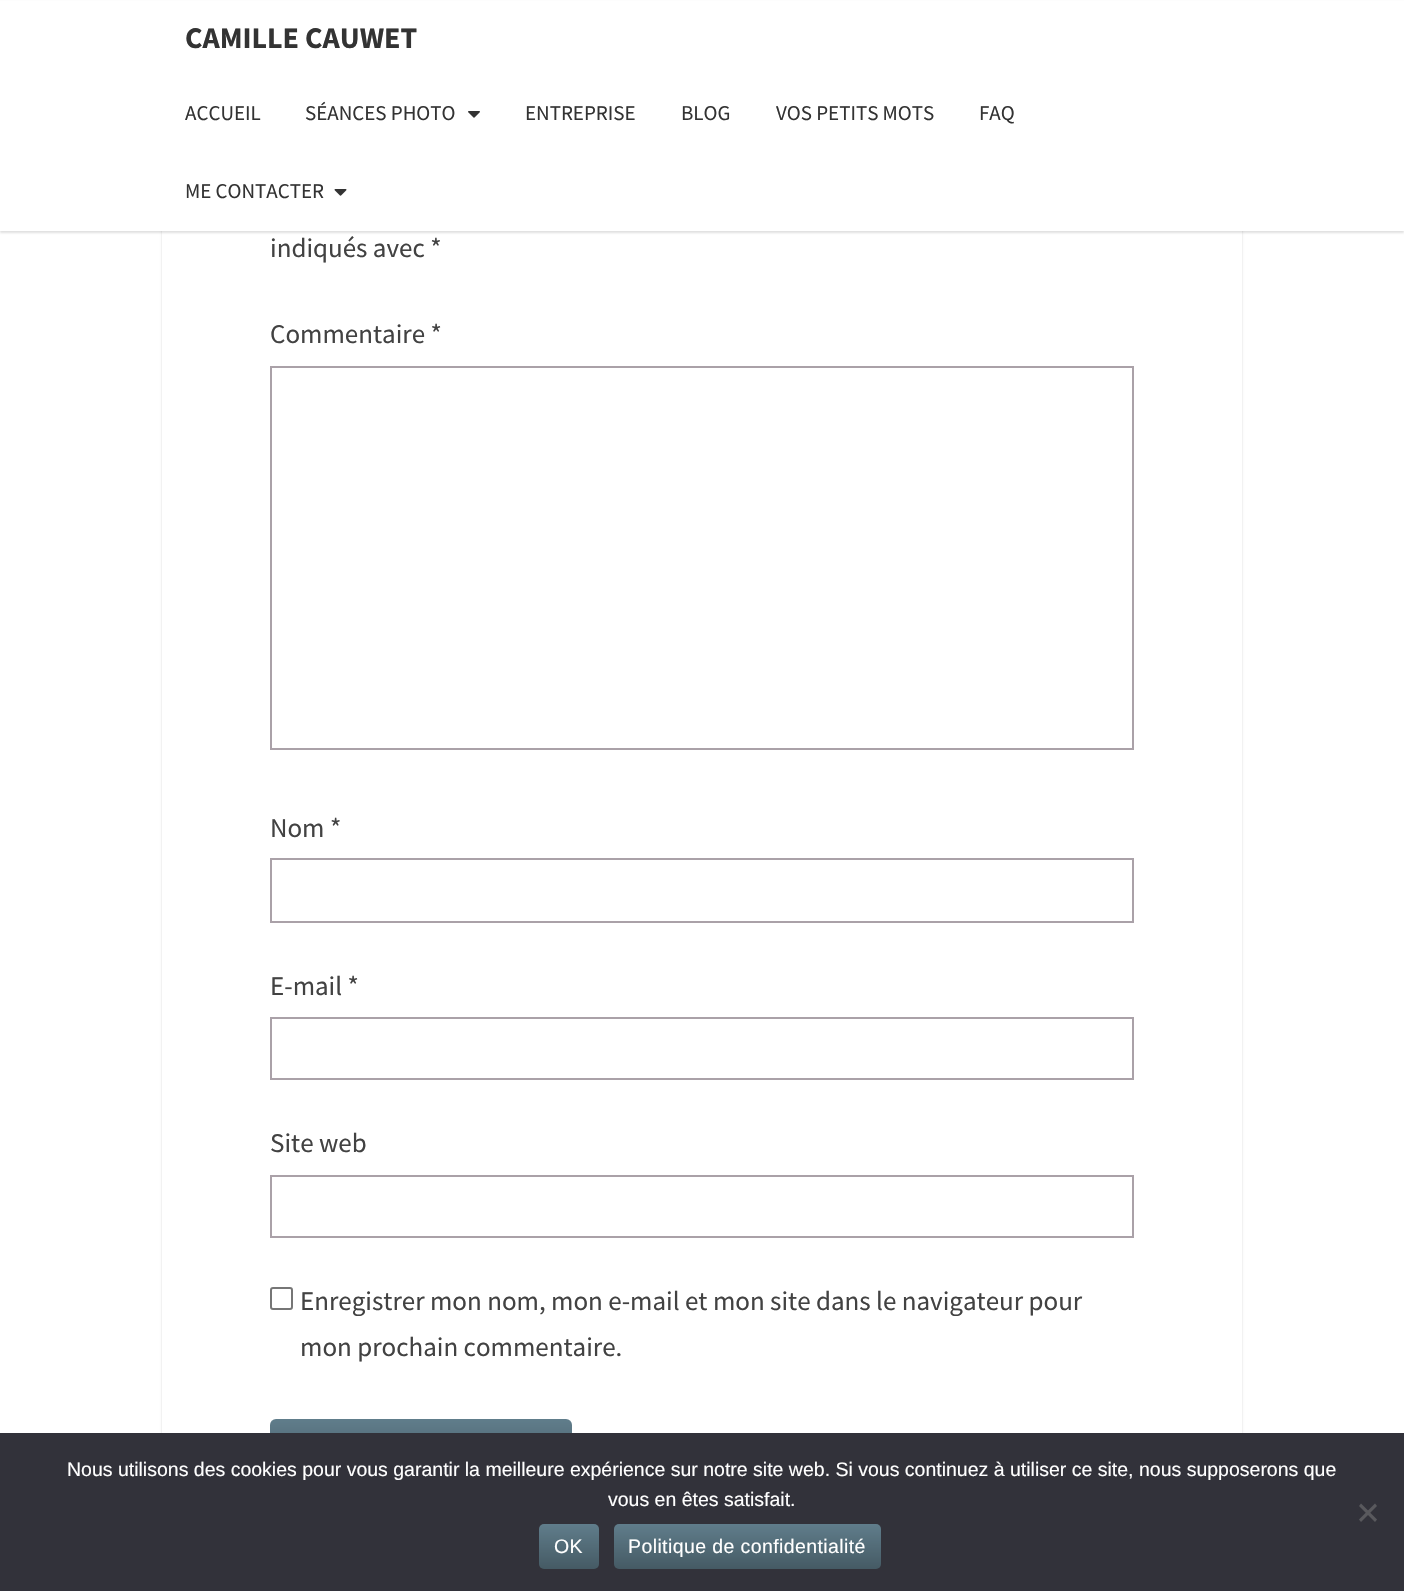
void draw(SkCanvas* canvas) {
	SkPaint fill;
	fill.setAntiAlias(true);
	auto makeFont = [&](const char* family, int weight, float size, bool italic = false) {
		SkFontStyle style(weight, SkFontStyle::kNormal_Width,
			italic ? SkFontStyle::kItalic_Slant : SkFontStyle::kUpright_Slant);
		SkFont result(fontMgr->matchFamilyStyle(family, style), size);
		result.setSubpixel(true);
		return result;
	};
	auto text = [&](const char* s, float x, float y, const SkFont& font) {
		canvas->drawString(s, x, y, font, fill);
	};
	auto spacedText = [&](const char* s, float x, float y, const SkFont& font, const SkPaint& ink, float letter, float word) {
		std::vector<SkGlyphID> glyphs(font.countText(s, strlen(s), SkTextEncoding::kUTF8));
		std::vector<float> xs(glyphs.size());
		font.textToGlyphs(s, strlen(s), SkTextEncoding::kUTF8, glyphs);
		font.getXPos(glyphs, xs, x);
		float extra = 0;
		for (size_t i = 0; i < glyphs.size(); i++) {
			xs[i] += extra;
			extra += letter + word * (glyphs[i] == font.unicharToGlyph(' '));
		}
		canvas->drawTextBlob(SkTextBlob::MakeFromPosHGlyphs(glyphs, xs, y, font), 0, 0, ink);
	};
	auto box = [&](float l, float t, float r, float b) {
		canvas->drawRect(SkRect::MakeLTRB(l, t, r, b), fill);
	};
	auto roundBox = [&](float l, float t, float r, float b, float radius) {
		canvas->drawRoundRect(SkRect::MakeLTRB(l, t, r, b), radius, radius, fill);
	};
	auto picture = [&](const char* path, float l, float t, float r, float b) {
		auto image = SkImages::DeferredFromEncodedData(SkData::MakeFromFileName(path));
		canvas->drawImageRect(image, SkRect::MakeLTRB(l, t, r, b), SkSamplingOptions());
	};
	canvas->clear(0xFFFFFFFF);
	fill.setColor(0x33646464);
	fill.setMaskFilter(SkMaskFilter::MakeBlur(kNormal_SkBlurStyle, 1));
	canvas->drawRect(SkRect::MakeLTRB(0, 2, 1404, 233), fill);
	fill.setMaskFilter(nullptr);
	canvas->save();
	canvas->clipPath(SkPathBuilder(SkPathFillType::kEvenOdd).moveTo(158, 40).lineTo(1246, 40).lineTo(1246, 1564).lineTo(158, 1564).close().moveTo(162, 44).lineTo(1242, 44).lineTo(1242, 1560).lineTo(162, 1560).close().detach(), true);
	fill.setColor(0x26000000);
	fill.setMaskFilter(SkMaskFilter::MakeBlur(kNormal_SkBlurStyle, 1));
	canvas->drawRect(SkRect::MakeLTRB(162, 44, 1242, 1560), fill);
	fill.setMaskFilter(nullptr);
	canvas->restore();
	fill.setColor(0xFFFFFFFF);
	box(0, 1, 1404, 231);
	picture("image0.png", 468, 111, 480, 118);
	picture("image1.png", 334, 189, 347, 196);
	fill.setStyle(SkPaint::kStroke_Style);
	fill.setStrokeWidth(2);
	fill.setColor(0xFFAAA1A8);
	canvas->drawRect(SkRect::MakeLTRB(271, 367, 1133, 749), fill);
	canvas->drawRect(SkRect::MakeLTRB(271, 859, 1133, 922), fill);
	canvas->drawRect(SkRect::MakeLTRB(271, 1018, 1133, 1079), fill);
	canvas->drawRect(SkRect::MakeLTRB(271, 1176, 1133, 1237), fill);
	fill.setColor(0xFF767676);
	canvas->drawRoundRect(SkRect::MakeLTRB(271, 1288, 292, 1309), 2, 2, fill);
	fill.setStyle(SkPaint::kFill_Style);
	{
		const SkColor colors[] = {0xFF607D8B, 0xFF455A64};
		const float stops[] = {0, 1};
		const SkPoint ends[] = {{421, 1419}, {421, 1479}};
		fill.setShader(SkGradientShader::MakeLinear(ends, colors, stops, 2, SkTileMode::kClamp));
		fill.setAlpha(255);
	}
	roundBox(270, 1419, 572, 1479, 6);
	fill.setShader(nullptr);
	fill.setColor(0xFF32323A);
	box(0, 1433, 1404, 1591);
	fill.setColor(0xFF59595D);
	canvas->drawPath(SkPathBuilder().moveTo(1375, 1503.5f).lineTo(1377, 1506).lineTo(1361, 1522).lineTo(1359, 1519.5f).close().detach(), fill);
	canvas->drawPath(SkPathBuilder().moveTo(1359, 1506).lineTo(1361, 1503.5f).lineTo(1377, 1519.5f).lineTo(1375, 1522).close().detach(), fill);
	{
		const SkColor colors[] = {0xFF607D8B, 0xFF455A64};
		const float stops[] = {0, 1};
		const SkPoint ends[] = {{569, 1524}, {569, 1569}};
		fill.setShader(SkGradientShader::MakeLinear(ends, colors, stops, 2, SkTileMode::kClamp));
		fill.setAlpha(255);
	}
	roundBox(539, 1524, 599, 1569, 5);
	{
		const SkColor colors[] = {0xFF607D8B, 0xFF455A64};
		const float stops[] = {0, 1};
		const SkPoint ends[] = {{747, 1524}, {747, 1569}};
		fill.setShader(SkGradientShader::MakeLinear(ends, colors, stops, 2, SkTileMode::kClamp));
		fill.setAlpha(255);
	}
	roundBox(614, 1524, 881, 1569, 5);
	auto font1 = makeFont("Source Sans Pro", 700, 30);
	fill.setShader(nullptr);
	fill.setColor(0xFF333333);
	text("CAMILLE CAUWET", 185, 48, font1);
	auto font2 = makeFont("Source Sans Pro", 400, 21);
	text("ACCUEIL", 185, 120, font2);
	text("SÉANCES PHOTO", 305, 120, font2);
	text("ENTREPRISE", 525, 120, font2);
	text("BLOG", 681, 120, font2);
	text("VOS PETITS MOTS", 776, 120, font2);
	text("FAQ", 979, 120, font2);
	text("ME CONTACTER", 185, 198, font2);
	auto font3 = makeFont("Source Sans Pro", 400, 27);
	fill.setColor(0xFF424242);
	text("indiqués avec *", 270, 257, font3);
	text("Commentaire *", 270, 343, font3);
	text("Nom *", 270, 837, font3);
	text("E-mail *", 270, 995, font3);
	text("Site web", 270, 1152, font3);
	text("Enregistrer mon nom, mon e-mail et mon site dans le navigateur pour", 300, 1310, font3);
	text("mon prochain commentaire.", 300, 1356, font3);
	auto font4 = makeFont("Liberation Sans", 400, 19.5f);
	fill.setColor(0xFFFFFFFF);
	text("Nous utilisons des cookies pour vous garantir la meilleure expérience sur notre site web. Si vous continuez à utiliser ce site, nous supposerons que", 67, 1476, font4);
	text("vous en êtes satisfait.", 608, 1506, font4);
	spacedText("OK", 554, 1553, font4, fill, 0.4f, 0);
	spacedText("Politique de confidentialité", 628, 1553, font4, fill, 0.4f, 0);
}
